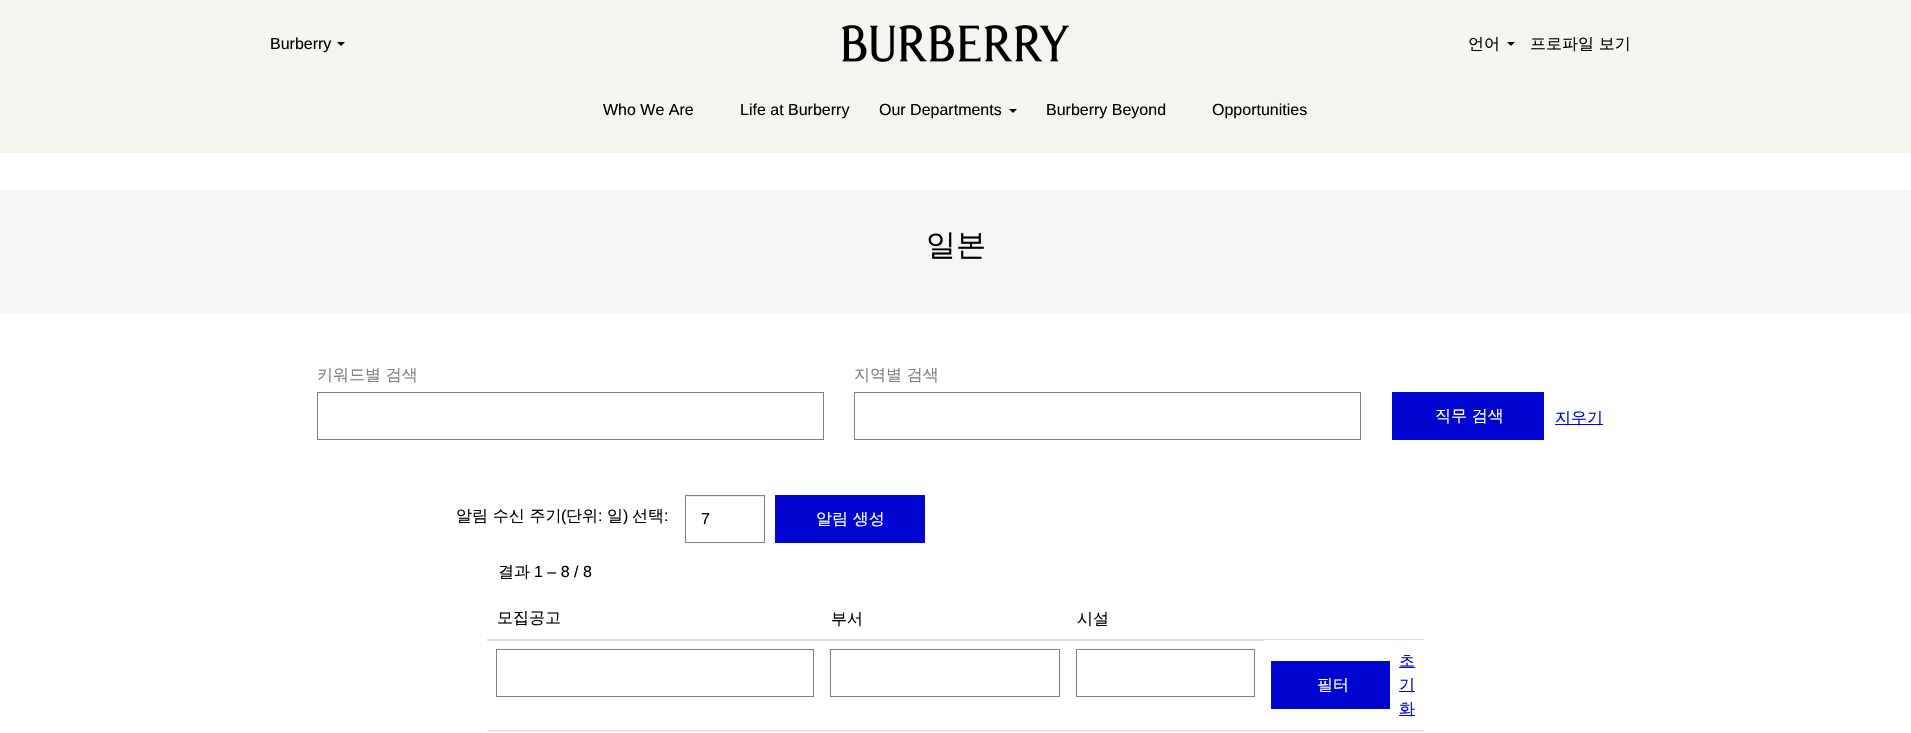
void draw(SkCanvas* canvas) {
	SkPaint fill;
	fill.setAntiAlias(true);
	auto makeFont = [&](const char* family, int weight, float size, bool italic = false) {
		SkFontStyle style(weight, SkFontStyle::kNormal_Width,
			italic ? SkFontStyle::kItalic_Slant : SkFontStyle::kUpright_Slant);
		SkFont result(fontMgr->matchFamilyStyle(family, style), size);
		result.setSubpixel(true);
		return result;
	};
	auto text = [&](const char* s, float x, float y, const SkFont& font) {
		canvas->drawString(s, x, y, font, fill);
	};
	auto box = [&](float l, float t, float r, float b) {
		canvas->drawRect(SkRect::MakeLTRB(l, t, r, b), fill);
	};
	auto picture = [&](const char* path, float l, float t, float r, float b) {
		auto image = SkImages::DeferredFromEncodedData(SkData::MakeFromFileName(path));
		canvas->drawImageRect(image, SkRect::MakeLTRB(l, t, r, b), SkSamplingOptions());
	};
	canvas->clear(0xFFFFFFFF);
	fill.setColor(0xFFF5F5EF);
	box(0, 0, 1911, 153);
	fill.setColor(0xFF000000);
	canvas->drawPath(SkPathBuilder().moveTo(337, 42).lineTo(345, 42).lineTo(341, 46).close().detach(), fill);
	picture("image0.png", 842, 25, 1069, 62);
	canvas->drawPath(SkPathBuilder().moveTo(1507, 42).lineTo(1515, 42).lineTo(1511, 46).close().detach(), fill);
	canvas->drawPath(SkPathBuilder().moveTo(1009, 109).lineTo(1017, 109).lineTo(1013, 113).close().detach(), fill);
	fill.setColor(0xFFF5F6F6);
	box(0, 190, 1911, 313);
	fill.setStyle(SkPaint::kStroke_Style);
	fill.setStrokeWidth(1);
	fill.setColor(0xFF808080);
	canvas->drawRect(SkRect::MakeLTRB(317.5f, 392.5f, 823.5f, 439.5f), fill);
	canvas->drawRect(SkRect::MakeLTRB(854.5f, 392.5f, 1360.5f, 439.5f), fill);
	fill.setStyle(SkPaint::kFill_Style);
	fill.setColor(0xFF0006CF);
	box(1392, 392, 1544, 440);
	box(1555, 424, 1603, 425);
	fill.setColor(0xFFECECEC);
	box(686, 496, 764, 497);
	fill.setStyle(SkPaint::kStroke_Style);
	fill.setColor(0xFF808080);
	canvas->drawRect(SkRect::MakeLTRB(685.5f, 495.5f, 764.5f, 542.5f), fill);
	fill.setStyle(SkPaint::kFill_Style);
	fill.setColor(0xFF0006CF);
	box(775, 495, 925, 543);
	fill.setColor(0xFFDDDDDD);
	box(1262, 639, 1424, 640);
	box(487, 639, 1264, 641);
	fill.setStyle(SkPaint::kStroke_Style);
	fill.setColor(0xFF808080);
	canvas->drawRect(SkRect::MakeLTRB(496.5f, 649.5f, 813.5f, 696.5f), fill);
	canvas->drawRect(SkRect::MakeLTRB(830.5f, 649.5f, 1059.5f, 696.5f), fill);
	canvas->drawRect(SkRect::MakeLTRB(1076.5f, 649.5f, 1254.5f, 696.5f), fill);
	fill.setStyle(SkPaint::kFill_Style);
	fill.setColor(0xFF0006CF);
	box(1271, 661, 1390, 709);
	box(1399, 667, 1415, 668);
	box(1399, 691, 1415, 692);
	box(1399, 715, 1415, 716);
	fill.setColor(0xFFF5F6F6);
	box(488, 731, 1424, 733);
	fill.setColor(0xFFDDDDDD);
	box(487, 730, 1424, 731);
	auto font1 = makeFont("Liberation Sans", 400, 16);
	fill.setColor(0xFF000000);
	text("Burberry", 270, 49, font1);
	auto font2 = makeFont("WenQuanYi Zen Hei", 500, 16);
	text("언어", 1468, 49, font2);
	text("프로파일 보기", 1530, 49, font2);
	text("Who We Are", 603, 115, font1);
	text("Life at Burberry", 740, 115, font1);
	text("Our Departments", 879, 115, font1);
	text("Burberry Beyond", 1046, 115, font1);
	text("Opportunities", 1212, 115, font1);
	auto font3 = makeFont("WenQuanYi Zen Hei", 500, 30);
	text("일본", 926, 255, font3);
	fill.setColor(0xFF808080);
	text("키워드별 검색", 317, 380, font2);
	text("지역별 검색", 854, 380, font2);
	fill.setColor(0xFFFFFFFF);
	text("직무 검색", 1435, 421, font2);
	fill.setColor(0xFF0006CF);
	text("지우기", 1555, 423, font2);
	fill.setColor(0xFF000000);
	text("알림 수신 주기", 456, 521, font2);
	text("(", 561, 521, font1);
	text("단위", 566, 521, font2);
	text(":", 598, 521, font1);
	text("일", 607, 521, font2);
	text(")", 623, 521, font1);
	text("선택", 632, 521, font2);
	text(":", 664, 521, font1);
	text("7", 701, 524, font1);
	fill.setColor(0xFFFFFFFF);
	text("알림 생성", 816, 524, font2);
	fill.setColor(0xFF000000);
	text("결과", 498, 577, font2);
	text("1 – 8 / 8", 534, 577, font1);
	text("모집공고", 497, 623, font2);
	text("부서", 831, 624, font2);
	text("시설", 1077, 624, font2);
	fill.setColor(0xFFFFFFFF);
	text("필터", 1317, 690, font2);
	fill.setColor(0xFF0006CF);
	text("초", 1399, 666, font2);
	text("기", 1399, 690, font2);
	text("화", 1399, 714, font2);
}
